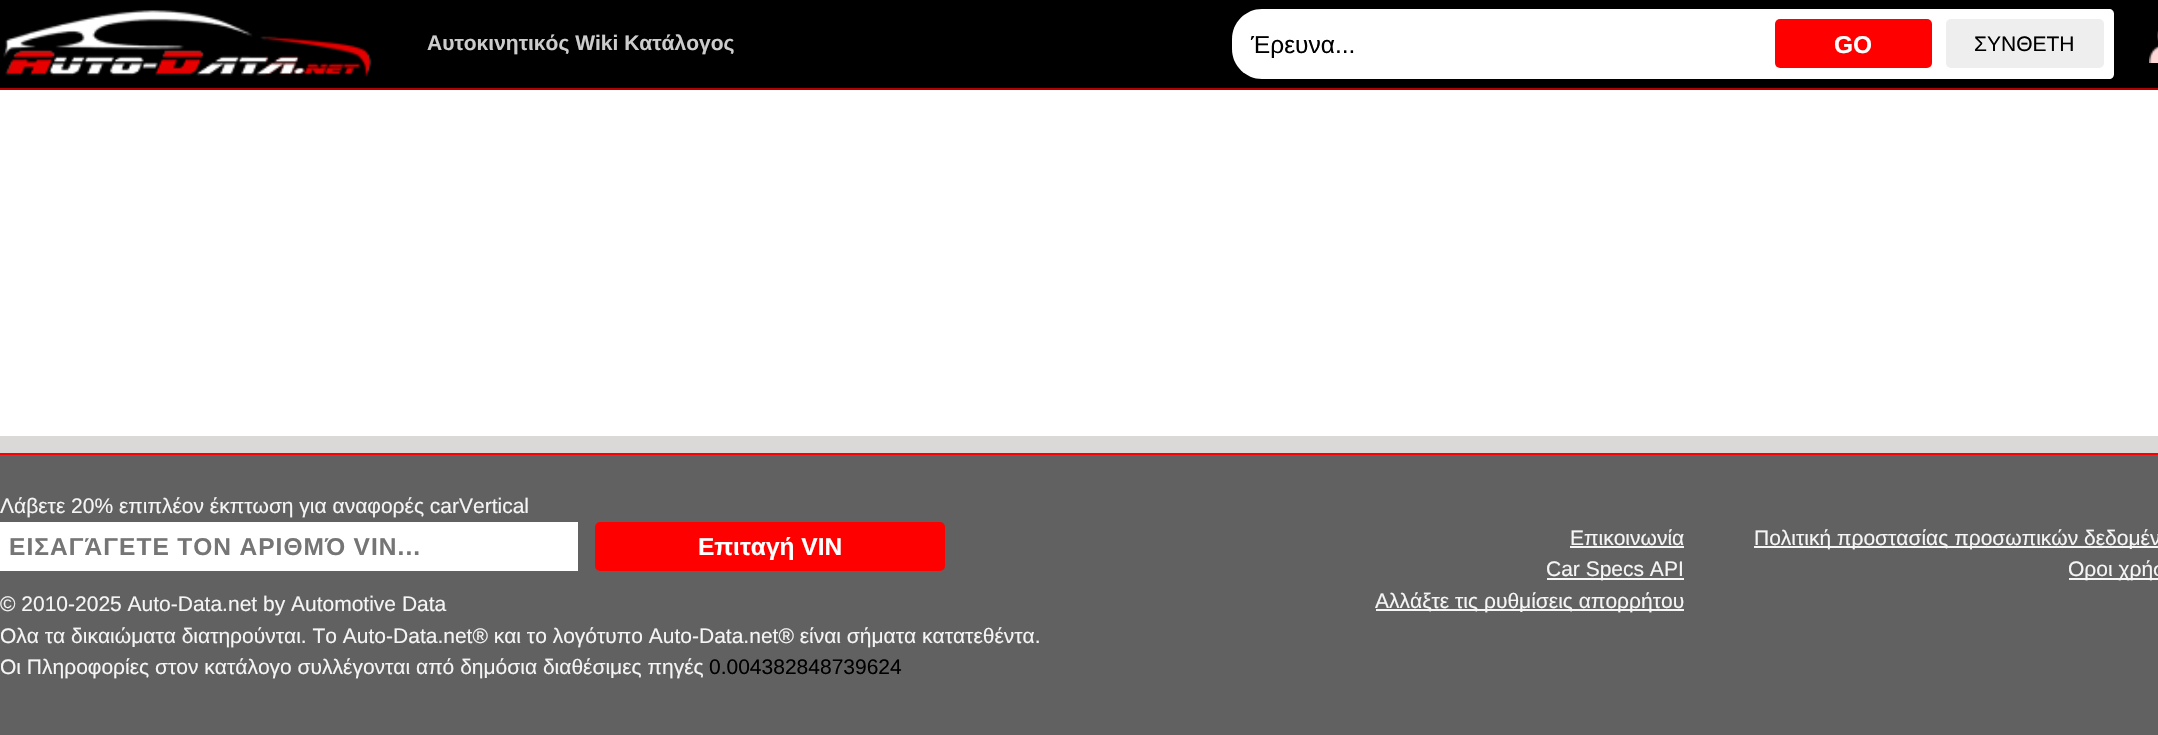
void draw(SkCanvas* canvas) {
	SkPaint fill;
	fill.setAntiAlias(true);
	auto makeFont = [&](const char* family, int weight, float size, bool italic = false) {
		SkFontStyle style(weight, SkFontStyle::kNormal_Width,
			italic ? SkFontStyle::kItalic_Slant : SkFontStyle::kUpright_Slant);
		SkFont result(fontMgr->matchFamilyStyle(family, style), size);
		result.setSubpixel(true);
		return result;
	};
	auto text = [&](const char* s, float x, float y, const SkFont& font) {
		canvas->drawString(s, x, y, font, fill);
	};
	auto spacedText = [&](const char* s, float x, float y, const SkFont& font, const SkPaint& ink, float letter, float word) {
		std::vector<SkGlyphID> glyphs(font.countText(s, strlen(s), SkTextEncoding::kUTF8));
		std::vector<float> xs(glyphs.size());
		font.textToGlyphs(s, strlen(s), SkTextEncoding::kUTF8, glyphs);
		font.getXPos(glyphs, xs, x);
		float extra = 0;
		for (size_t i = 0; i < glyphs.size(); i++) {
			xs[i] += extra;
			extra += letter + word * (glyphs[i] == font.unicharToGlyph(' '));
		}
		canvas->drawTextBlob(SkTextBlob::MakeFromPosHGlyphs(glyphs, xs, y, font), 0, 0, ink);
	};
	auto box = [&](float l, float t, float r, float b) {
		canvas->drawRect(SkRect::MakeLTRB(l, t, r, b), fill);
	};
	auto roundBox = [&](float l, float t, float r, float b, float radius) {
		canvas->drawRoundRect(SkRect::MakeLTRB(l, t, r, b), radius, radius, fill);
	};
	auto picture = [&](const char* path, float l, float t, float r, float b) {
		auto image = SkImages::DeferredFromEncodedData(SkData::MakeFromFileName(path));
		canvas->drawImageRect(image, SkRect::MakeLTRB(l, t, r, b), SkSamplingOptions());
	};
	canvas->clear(0xFFDBD8D8);
	fill.setColor(0xFF000000);
	box(0, 0, 2158, 88);
	fill.setColor(0xFFB50000);
	box(0, 88, 2158, 90);
	picture("image0.png", 3, 10, 372, 77);
	fill.setColor(0xFFFFFFFF);
	canvas->drawPath(SkPathBuilder().moveTo(1262, 9).lineTo(2109, 9).cubicTo(2112, 9, 2114, 11, 2114, 14).lineTo(2114, 74).cubicTo(2114, 77, 2112, 79, 2109, 79).lineTo(1262, 79).cubicTo(1245.5f, 79, 1232, 65.5f, 1232, 49).lineTo(1232, 39).cubicTo(1232, 22.5f, 1245.5f, 9, 1262, 9).close().detach(), fill);
	fill.setColor(0xFFFF0000);
	roundBox(1775, 19, 1932, 68, 5);
	fill.setColor(0xFFEEEEEE);
	roundBox(1946, 19, 2104, 68, 5);
	picture("image1.png", 2149, 31, 2158, 63);
	fill.setColor(0xFFFFFFFF);
	box(0, 90, 2158, 436);
	fill.setColor(0xFF616161);
	box(0, 455, 2158, 735);
	fill.setColor(0xFFFF0000);
	box(0, 453, 2158, 455);
	fill.setColor(0xFFFFFFFF);
	box(0, 522, 578, 571);
	fill.setColor(0xFFFF0000);
	roundBox(595, 522, 945, 571, 5);
	fill.setColor(0xFFF5F5F5);
	box(1570, 546, 1684, 548);
	box(1547, 578, 1684, 580);
	box(1376, 609, 1684, 611);
	box(1754, 546, 2158, 548);
	box(2069, 578, 2158, 580);
	auto font1 = makeFont("Liberation Sans", 700, 21);
	fill.setColor(0xFFCCCCCC);
	text("Αυτοκινητικός Wiki Κατάλογος", 427, 50, font1);
	auto font2 = makeFont("Liberation Sans", 400, 24.5f);
	fill.setColor(0xFF000000);
	text("Έρευνα...", 1251, 53, font2);
	auto font3 = makeFont("Liberation Sans", 700, 24.5f);
	fill.setColor(0xFFFFFFFF);
	text("GO", 1834, 53, font3);
	auto font4 = makeFont("Liberation Sans", 400, 21);
	fill.setColor(0xFF000000);
	text("ΣΥΝΘΕΤΗ", 1974, 51, font4);
	fill.setColor(0xFFF5F5F5);
	text("Λάβετε 20% επιπλέον έκπτωση για αναφορές carVertical", 0, 513, font4);
	fill.setColor(0xFF757575);
	spacedText("ΕΙΣΑΓΆΓΕΤΕ ΤΟΝ ΑΡΙΘΜΌ VIN...", 9, 555, font3, fill, 1.05f, -0.5f);
	fill.setColor(0xFFFFFFFF);
	text("Επιταγή VIN", 698, 555, font3);
	fill.setColor(0xFFF5F5F5);
	text("Επικοινωνία", 1570, 545, font4);
	text("Car Specs API", 1546, 576, font4);
	text("Αλλάξτε τις ρυθμίσεις απορρήτου", 1375, 608, font4);
	text("Πολιτική προστασίας προσωπικών δεδομέν", 1754, 545, font4);
	text("Οροι χρήσ", 2068, 576, font4);
	text("© 2010-2025 Auto-Data.net by Automotive Data", 0, 611, font4);
	text("Ολα τα δικαιώματα διατηρούνται. Το Auto-Data.net® και το λογότυπο Auto-Data.net® είναι σήματα κατατεθέντα.", 0, 643, font4);
	text("Οι Πληροφορίες στον κατάλογο συλλέγονται από δημόσια διαθέσιμες πηγές", 0, 674, font4);
	fill.setColor(0xFF000000);
	text("0.004382848739624", 709, 674, font4);
}
